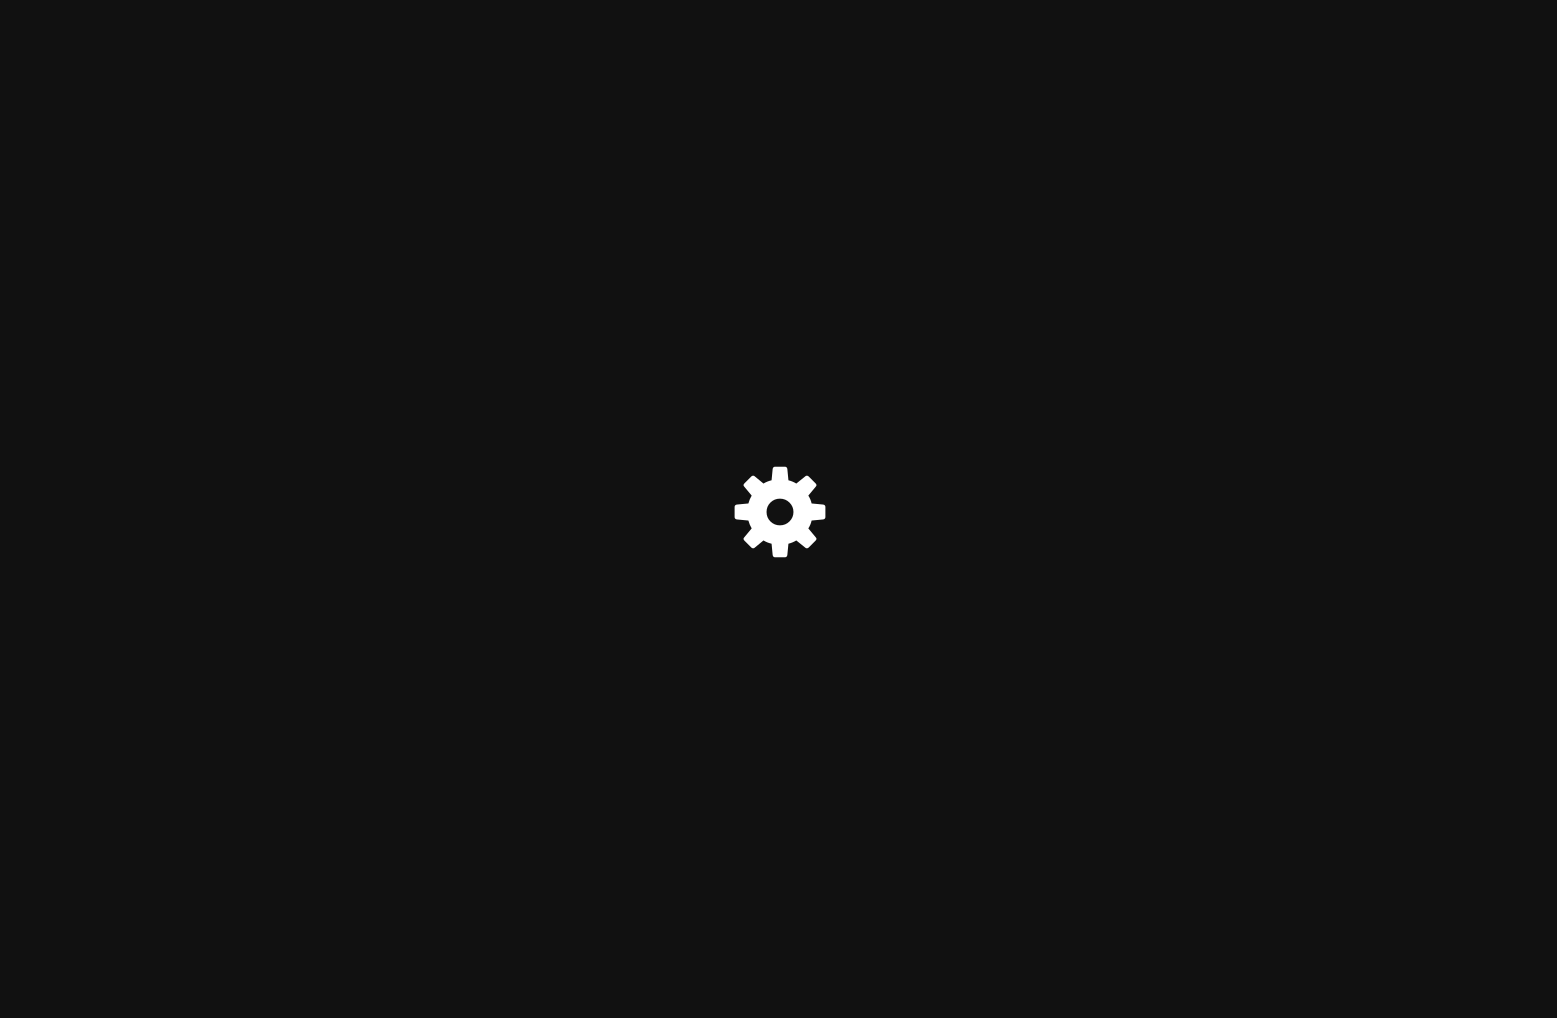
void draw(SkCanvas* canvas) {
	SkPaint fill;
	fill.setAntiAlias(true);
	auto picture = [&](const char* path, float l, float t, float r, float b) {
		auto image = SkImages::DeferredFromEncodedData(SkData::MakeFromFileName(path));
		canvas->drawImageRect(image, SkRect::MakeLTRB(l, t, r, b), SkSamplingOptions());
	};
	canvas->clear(0xFF111111);
	picture("image0.png", 734, 466, 826, 558);
}
